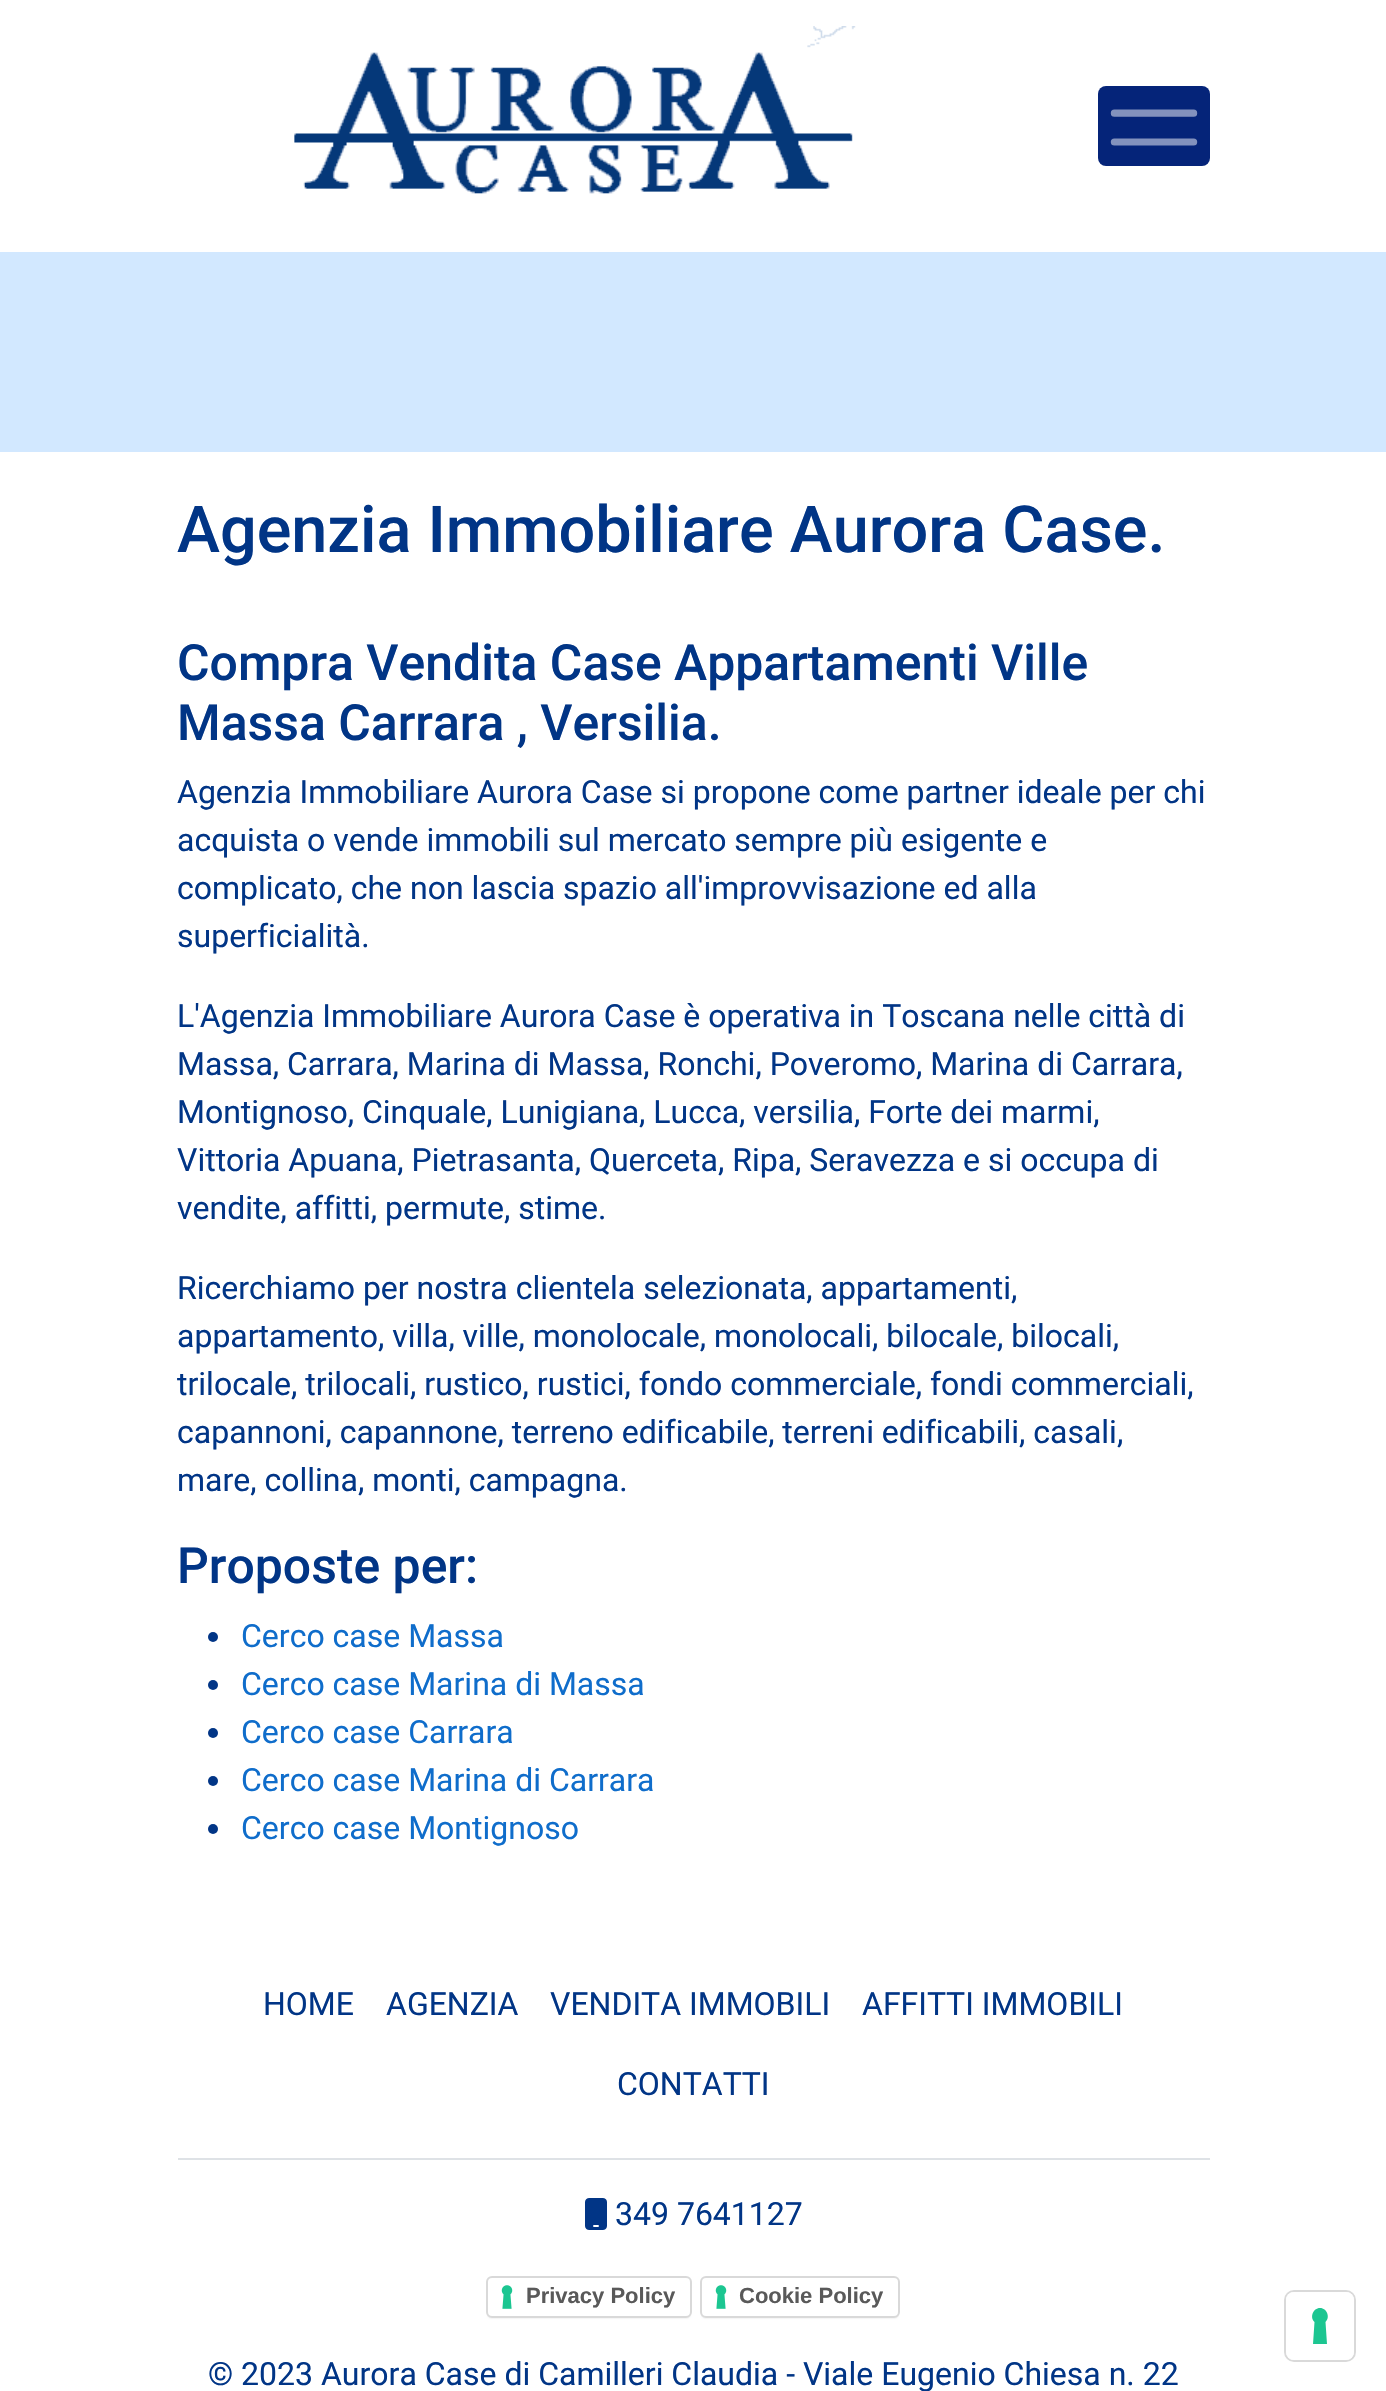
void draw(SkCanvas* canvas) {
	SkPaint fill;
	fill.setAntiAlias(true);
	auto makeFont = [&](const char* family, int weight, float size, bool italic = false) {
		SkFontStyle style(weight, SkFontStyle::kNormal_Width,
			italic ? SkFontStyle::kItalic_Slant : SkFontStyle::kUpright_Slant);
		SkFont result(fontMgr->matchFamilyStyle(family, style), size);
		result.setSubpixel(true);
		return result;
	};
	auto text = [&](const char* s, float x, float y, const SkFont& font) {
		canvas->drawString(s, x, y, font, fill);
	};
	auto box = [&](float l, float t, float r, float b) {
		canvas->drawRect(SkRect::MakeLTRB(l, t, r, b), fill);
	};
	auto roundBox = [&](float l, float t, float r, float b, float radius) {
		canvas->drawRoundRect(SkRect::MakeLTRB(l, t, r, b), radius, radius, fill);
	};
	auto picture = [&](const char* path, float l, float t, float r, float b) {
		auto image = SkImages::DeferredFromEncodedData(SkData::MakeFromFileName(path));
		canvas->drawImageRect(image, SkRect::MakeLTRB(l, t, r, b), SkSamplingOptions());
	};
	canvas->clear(0xFFFFFFFF);
	picture("image0.png", 294, 26, 856, 194);
	fill.setColor(0xFF052479);
	roundBox(1098, 86, 1210, 166, 8);
	picture("image1.png", 1110, 109, 1198, 146);
	fill.setColor(0xFFD2E8FF);
	box(0, 252, 1386, 452);
	fill.setColor(0xFF013586);
	canvas->drawCircle(213, 1637, 5, fill);
	canvas->drawCircle(213, 1685, 5, fill);
	canvas->drawCircle(213, 1733, 5, fill);
	canvas->drawCircle(213, 1781, 5, fill);
	canvas->drawCircle(213, 1829, 5, fill);
	fill.setColor(0xFFDEE2E6);
	box(178, 2158, 1210, 2160);
	picture("image2.png", 585, 2198, 607, 2230);
	fill.setColor(0x26000000);
	fill.setMaskFilter(SkMaskFilter::MakeBlur(kNormal_SkBlurStyle, 1));
	canvas->drawRoundRect(SkRect::MakeLTRB(488, 2280, 690, 2318), 4, 4, fill);
	fill.setMaskFilter(nullptr);
	fill.setColor(0xFFFFFFFF);
	roundBox(486, 2276, 692, 2318, 6);
	picture("image3.png", 501, 2285, 513, 2309);
	fill.setStyle(SkPaint::kStroke_Style);
	fill.setStrokeWidth(2);
	fill.setColor(0xFFD9D9D9);
	canvas->drawRoundRect(SkRect::MakeLTRB(487, 2277, 691, 2317), 5, 5, fill);
	fill.setStyle(SkPaint::kFill_Style);
	fill.setColor(0x26000000);
	fill.setMaskFilter(SkMaskFilter::MakeBlur(kNormal_SkBlurStyle, 1));
	canvas->drawRoundRect(SkRect::MakeLTRB(702, 2280, 898, 2318), 4, 4, fill);
	fill.setMaskFilter(nullptr);
	fill.setColor(0xFFFFFFFF);
	roundBox(700, 2276, 900, 2318, 6);
	picture("image3.png", 715, 2285, 727, 2309);
	fill.setStyle(SkPaint::kStroke_Style);
	fill.setColor(0xFFD9D9D9);
	canvas->drawRoundRect(SkRect::MakeLTRB(701, 2277, 899, 2317), 5, 5, fill);
	canvas->drawRoundRect(SkRect::MakeLTRB(1285, 2291, 1355, 2361), 9, 9, fill);
	fill.setStyle(SkPaint::kFill_Style);
	fill.setColor(0xFFFFFFFF);
	roundBox(1286, 2292, 1354, 2360, 8);
	fill.setColor(0xFF1CC691);
	canvas->drawPath(SkPathBuilder(SkPathFillType::kEvenOdd).moveTo(1320, 2308).cubicTo(1327, 2308, 1330.5f, 2317.5f, 1325.5f, 2322).lineTo(1327, 2344).lineTo(1313, 2344).lineTo(1314.5f, 2322).cubicTo(1309.5f, 2317.5f, 1313, 2308, 1320, 2308).close().detach(), fill);
	auto font1 = makeFont("Roboto", 500, 64.75f);
	fill.setColor(0xFF013586);
	text("Agenzia Immobiliare Aurora Case.", 177, 552, font1);
	auto font2 = makeFont("Roboto", 500, 49.9f);
	text("Compra Vendita Case Appartamenti Ville", 177, 680, font2);
	text("Massa Carrara , Versilia.", 177, 740, font2);
	auto font3 = makeFont("Roboto", 400, 32);
	text("Agenzia Immobiliare Aurora Case si propone come partner ideale per chi", 177, 803, font3);
	text("acquista o vende immobili sul mercato sempre più esigente e", 177, 851, font3);
	text("complicato, che non lascia spazio all'improvvisazione ed alla", 177, 899, font3);
	text("superficialità.", 177, 947, font3);
	text("L'Agenzia Immobiliare Aurora Case è operativa in Toscana nelle città di", 177, 1027, font3);
	text("Massa, Carrara, Marina di Massa, Ronchi, Poveromo, Marina di Carrara,", 177, 1075, font3);
	text("Montignoso, Cinquale, Lunigiana, Lucca, versilia, Forte dei marmi,", 177, 1123, font3);
	text("Vittoria Apuana, Pietrasanta, Querceta, Ripa, Seravezza e si occupa di", 177, 1171, font3);
	text("vendite, affitti, permute, stime.", 177, 1219, font3);
	text("Ricerchiamo per nostra clientela selezionata, appartamenti,", 177, 1299, font3);
	text("appartamento, villa, ville, monolocale, monolocali, bilocale, bilocali,", 177, 1347, font3);
	text("trilocale, trilocali, rustico, rustici, fondo commerciale, fondi commerciali,", 177, 1395, font3);
	text("capannoni, capannone, terreno edificabile, terreni edificabili, casali,", 177, 1443, font3);
	text("mare, collina, monti, campagna.", 177, 1491, font3);
	text("Proposte per:", 177, 1583, font2);
	fill.setColor(0xFF0F6DCB);
	text("Cerco case Massa", 241, 1647, font3);
	text("Cerco case Marina di Massa", 241, 1695, font3);
	text("Cerco case Carrara", 241, 1743, font3);
	text("Cerco case Marina di Carrara", 241, 1791, font3);
	text("Cerco case Montignoso", 241, 1839, font3);
	fill.setColor(0xFF013586);
	text("HOME", 263, 2015, font3);
	text("AGENZIA", 386, 2015, font3);
	text("VENDITA IMMOBILI", 550, 2015, font3);
	text("AFFITTI IMMOBILI", 862, 2015, font3);
	text("CONTATTI", 617, 2095, font3);
	text("349 7641127", 615, 2225, font3);
	auto font4 = makeFont("Liberation Sans", 700, 22);
	fill.setColor(0xFF595959);
	text("Privacy Policy", 526, 2303, font4);
	text("Cookie Policy", 739, 2303, font4);
	fill.setColor(0xFF013586);
	text("© 2023 Aurora Case di Camilleri Claudia - Viale Eugenio Chiesa n. 22", 208, 2385, font3);
}
